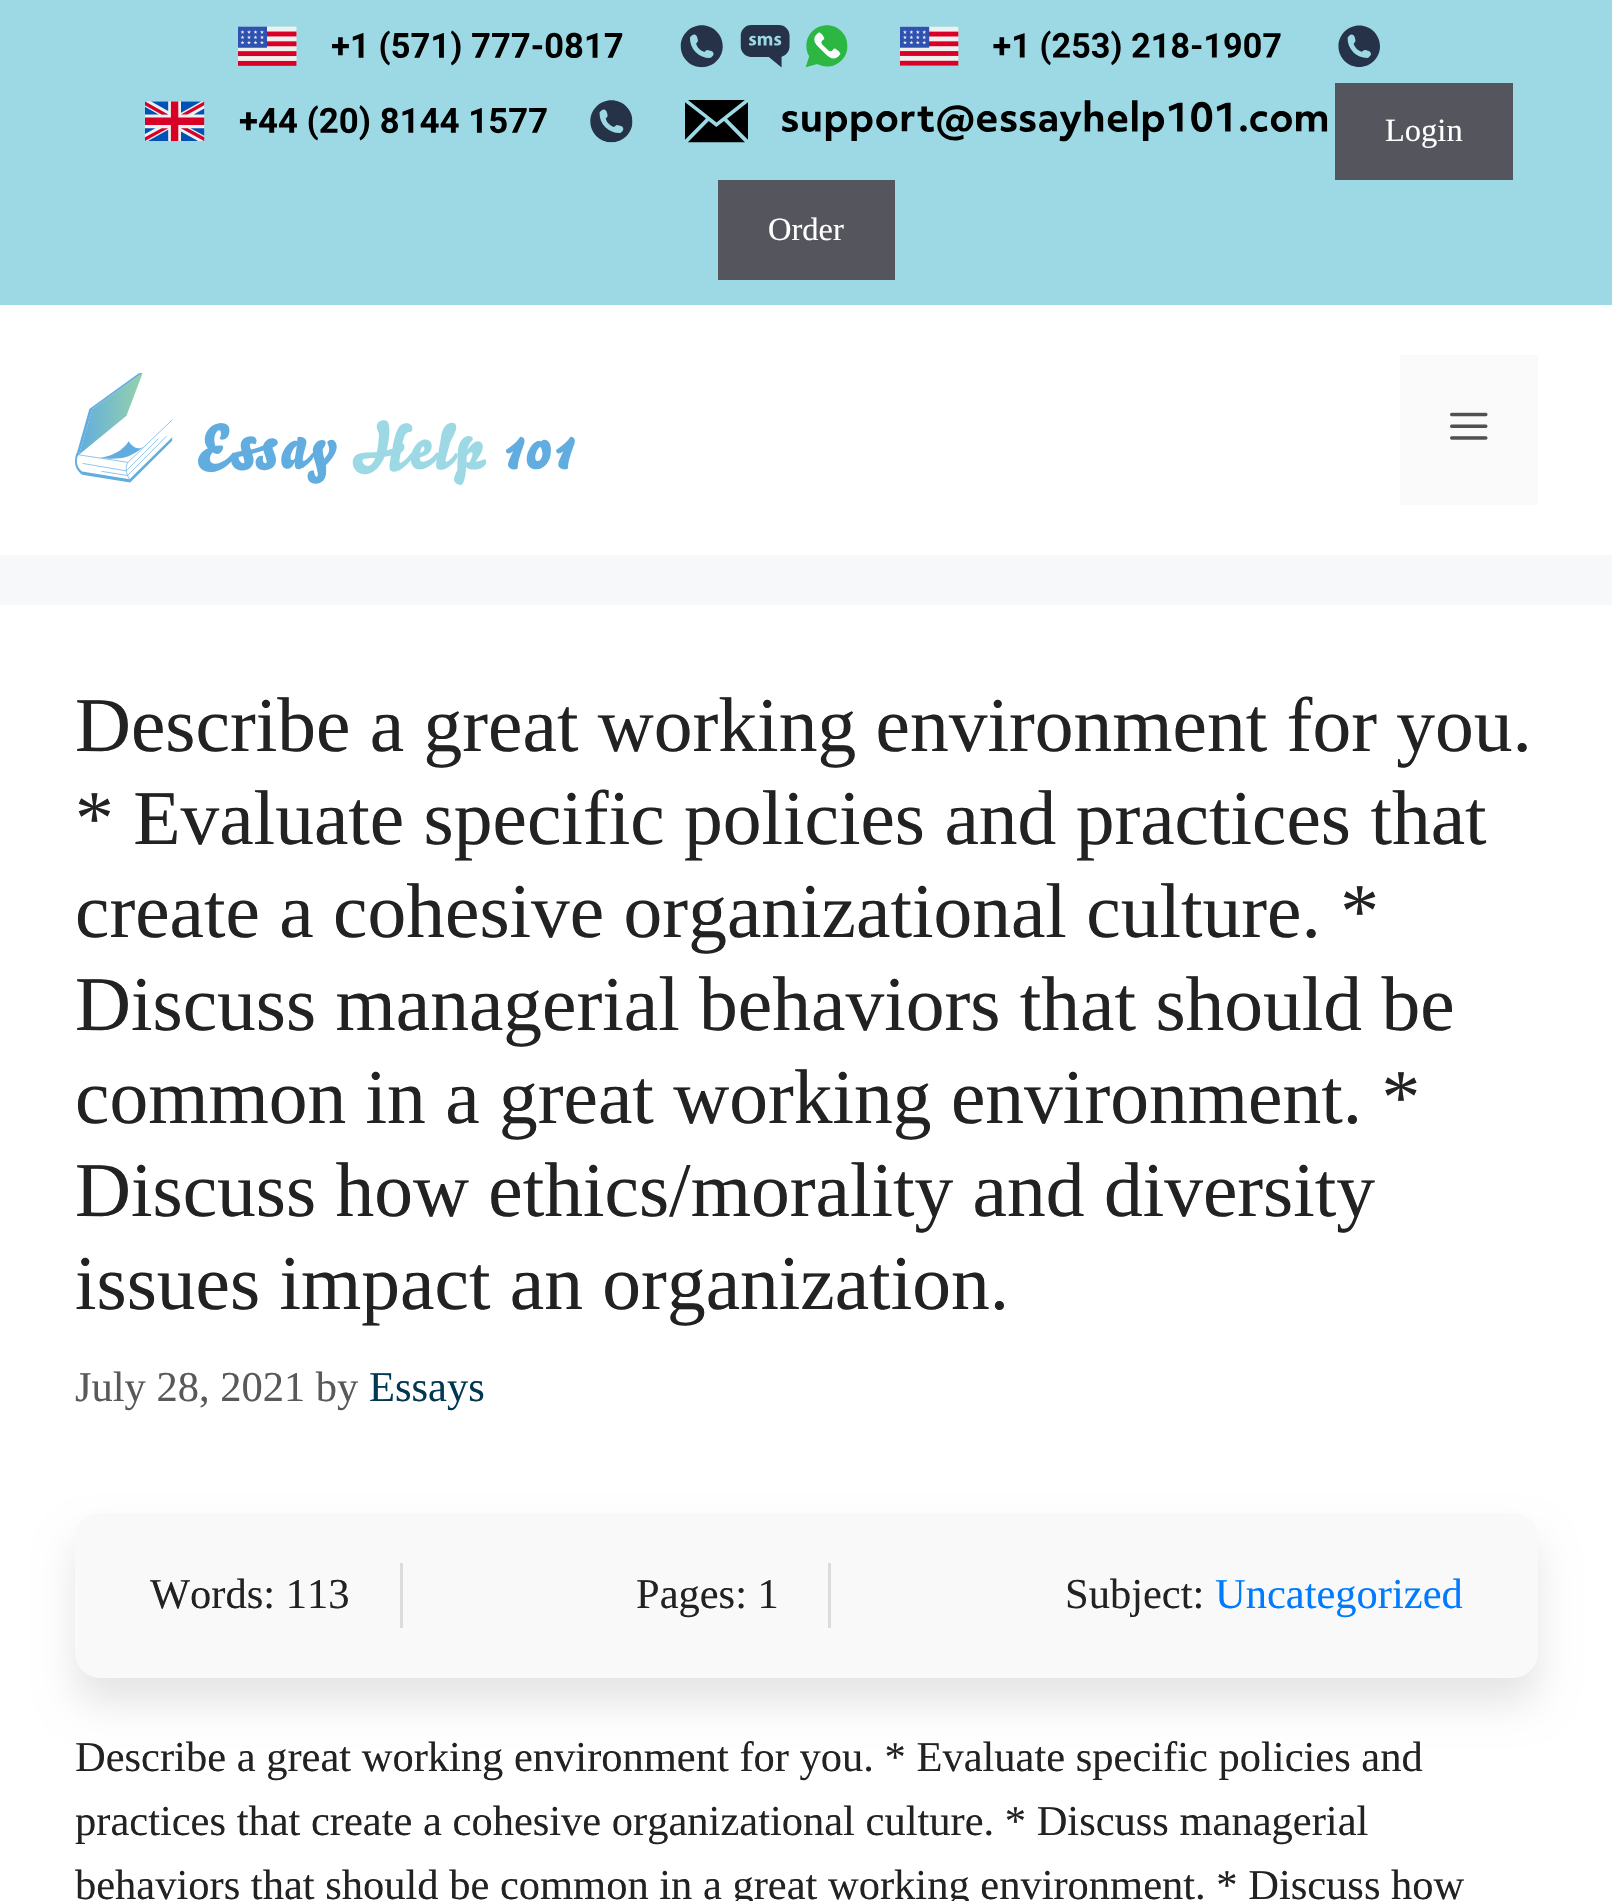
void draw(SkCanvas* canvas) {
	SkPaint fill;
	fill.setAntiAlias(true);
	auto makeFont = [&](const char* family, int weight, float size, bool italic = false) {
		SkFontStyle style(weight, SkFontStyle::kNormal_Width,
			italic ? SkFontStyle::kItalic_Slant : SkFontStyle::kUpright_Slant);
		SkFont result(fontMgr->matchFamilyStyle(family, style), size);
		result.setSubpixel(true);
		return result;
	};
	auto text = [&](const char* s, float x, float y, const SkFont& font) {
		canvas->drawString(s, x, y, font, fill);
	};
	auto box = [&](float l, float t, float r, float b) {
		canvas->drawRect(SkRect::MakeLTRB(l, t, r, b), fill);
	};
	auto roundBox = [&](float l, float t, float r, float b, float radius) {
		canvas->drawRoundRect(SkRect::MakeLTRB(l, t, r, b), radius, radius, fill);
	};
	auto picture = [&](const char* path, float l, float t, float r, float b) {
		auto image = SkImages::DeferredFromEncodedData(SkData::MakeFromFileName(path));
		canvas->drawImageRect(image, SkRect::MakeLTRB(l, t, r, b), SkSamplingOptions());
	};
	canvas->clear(0xFFF7F8F9);
	fill.setColor(0xFF9CD9E4);
	box(0, 0, 1612, 305);
	picture("image0.png", 238, 25, 848, 68);
	picture("image1.png", 900, 25, 1380, 67);
	picture("image2.png", 145, 100, 633, 143);
	picture("image3.png", 685, 100, 1328, 143);
	fill.setColor(0xFF55555E);
	box(1335, 83, 1513, 180);
	box(718, 180, 895, 280);
	fill.setColor(0xFFFFFFFF);
	box(0, 305, 1612, 555);
	picture("image4.png", 75, 373, 575, 485);
	fill.setColor(0xFFFAFAFA);
	box(1400, 355, 1538, 505);
	picture("image5.png", 1450, 412, 1488, 440);
	fill.setColor(0xFFFFFFFF);
	box(0, 605, 1612, 1901);
	fill.setColor(0x1A000000);
	fill.setMaskFilter(SkMaskFilter::MakeBlur(kNormal_SkBlurStyle, 19));
	canvas->drawRoundRect(SkRect::MakeLTRB(75, 1538, 1538, 1703), 25, 25, fill);
	fill.setMaskFilter(nullptr);
	fill.setColor(0xFFF9F9F9);
	roundBox(75, 1513, 1538, 1678, 25);
	fill.setColor(0xFFDCDCDC);
	box(400, 1563, 403, 1628);
	box(828, 1563, 831, 1628);
	auto font1 = makeFont("Liberation Serif", 400, 32.5f);
	fill.setColor(0xFFFFFFFF);
	text("Login", 1385, 141, font1);
	text("Order", 768, 240, font1);
	auto font2 = makeFont("Liberation Serif", 400, 77.5f);
	fill.setColor(0xFF222222);
	text("Describe a great working environment for you.", 75, 751, font2);
	text("* Evaluate specific policies and practices that", 75, 844, font2);
	text("create a cohesive organizational culture. *", 75, 937, font2);
	text("Discuss managerial behaviors that should be", 75, 1030, font2);
	text("common in a great working environment. *", 75, 1123, font2);
	text("Discuss how ethics/morality and diversity", 75, 1216, font2);
	text("issues impact an organization.", 75, 1309, font2);
	auto font3 = makeFont("Liberation Serif", 400, 42.5f);
	fill.setColor(0xFF595959);
	text("July 28, 2021 by", 75, 1401, font3);
	fill.setColor(0xFF003951);
	text("Essays", 369, 1401, font3);
	fill.setColor(0xFF222222);
	text("Words: 113", 150, 1608, font3);
	text("Pages: 1", 636, 1608, font3);
	text("Subject:", 1065, 1608, font3);
	fill.setColor(0xFF007BFF);
	text("Uncategorized", 1215, 1608, font3);
	fill.setColor(0xFF222222);
	text("Describe a great working environment for you. * Evaluate specific policies and", 75, 1771, font3);
	text("practices that create a cohesive organizational culture. * Discuss managerial", 75, 1835, font3);
	text("behaviors that should be common in a great working environment. * Discuss how", 75, 1899, font3);
}
